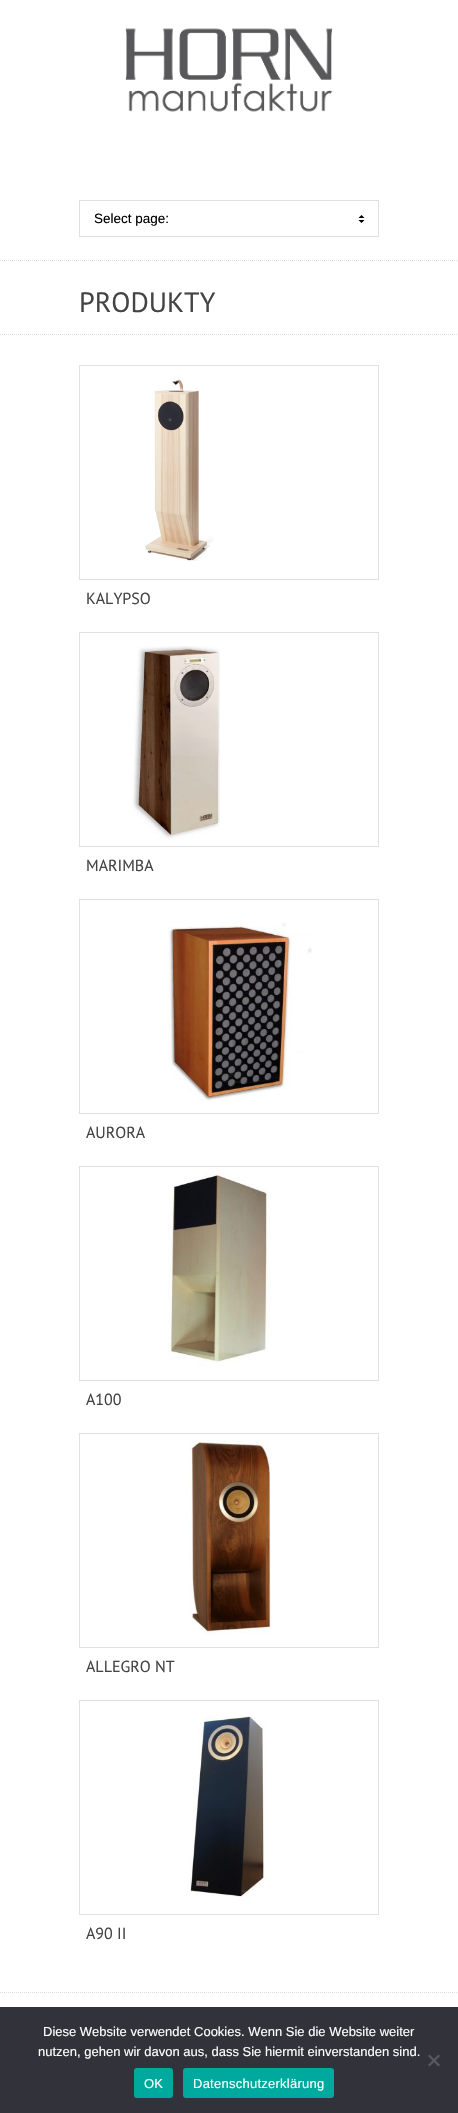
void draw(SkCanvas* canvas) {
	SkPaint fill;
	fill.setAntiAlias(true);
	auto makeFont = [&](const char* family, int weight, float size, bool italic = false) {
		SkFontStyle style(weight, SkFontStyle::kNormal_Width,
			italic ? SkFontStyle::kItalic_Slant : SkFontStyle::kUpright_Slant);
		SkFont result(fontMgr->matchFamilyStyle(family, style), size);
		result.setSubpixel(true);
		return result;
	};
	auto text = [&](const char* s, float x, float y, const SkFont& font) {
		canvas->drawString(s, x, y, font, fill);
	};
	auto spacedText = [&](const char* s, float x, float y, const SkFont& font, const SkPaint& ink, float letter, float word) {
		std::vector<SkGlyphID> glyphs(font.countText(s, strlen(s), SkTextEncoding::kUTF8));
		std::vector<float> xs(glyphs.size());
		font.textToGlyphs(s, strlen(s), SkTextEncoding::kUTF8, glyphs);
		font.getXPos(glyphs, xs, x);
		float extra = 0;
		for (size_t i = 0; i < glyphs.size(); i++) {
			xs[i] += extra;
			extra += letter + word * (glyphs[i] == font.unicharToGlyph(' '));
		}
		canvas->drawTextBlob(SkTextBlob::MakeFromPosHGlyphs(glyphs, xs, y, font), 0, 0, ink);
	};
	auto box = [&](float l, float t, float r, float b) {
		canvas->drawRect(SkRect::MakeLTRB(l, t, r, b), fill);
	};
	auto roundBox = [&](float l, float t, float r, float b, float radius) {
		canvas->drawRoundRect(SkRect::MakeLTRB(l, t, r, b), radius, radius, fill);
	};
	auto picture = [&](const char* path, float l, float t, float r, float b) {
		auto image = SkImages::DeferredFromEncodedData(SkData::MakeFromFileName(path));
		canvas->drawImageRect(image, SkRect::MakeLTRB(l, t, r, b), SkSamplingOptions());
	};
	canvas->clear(0xFFFFFFFF);
	fill.setStyle(SkPaint::kStroke_Style);
	fill.setStrokeWidth(1);
	fill.setColor(0xFFDDDDDD);
	fill.setPathEffect(SkDashPathEffect::Make({{1, 1}}, 0));
	canvas->drawPath(SkPathBuilder().moveTo(0, 260.5f).lineTo(458, 260.5f).detach(), fill);
	fill.setPathEffect(nullptr);
	picture("image0.png", 125, 28, 333, 112);
	picture("image1.png", 358, 215, 365, 223);
	fill.setColor(0xFFE0E0E0);
	canvas->drawRect(SkRect::MakeLTRB(79.5f, 200.5f, 378.5f, 236.5f), fill);
	fill.setColor(0xFFDDDDDD);
	fill.setPathEffect(SkDashPathEffect::Make({{1, 1}}, 0));
	canvas->drawPath(SkPathBuilder().moveTo(0, 1992.5f).lineTo(458, 1992.5f).detach(), fill);
	fill.setPathEffect(nullptr);
	fill.setPathEffect(SkDashPathEffect::Make({{1, 1}}, 0));
	canvas->drawPath(SkPathBuilder().moveTo(0, 334.5f).lineTo(458, 334.5f).detach(), fill);
	fill.setPathEffect(nullptr);
	fill.setColor(0xFFE1E1E1);
	canvas->drawRect(SkRect::MakeLTRB(79.5f, 365.5f, 378.5f, 579.5f), fill);
	picture("image2.png", 145, 379, 214, 561);
	canvas->drawRect(SkRect::MakeLTRB(79.5f, 632.5f, 378.5f, 846.5f), fill);
	picture("image3.png", 132, 646, 220, 839);
	canvas->drawRect(SkRect::MakeLTRB(79.5f, 899.5f, 378.5f, 1113.5f), fill);
	picture("image4.png", 168, 922, 312, 1101);
	canvas->drawRect(SkRect::MakeLTRB(79.5f, 1166.5f, 378.5f, 1380.5f), fill);
	picture("image5.png", 168, 1173, 271, 1367);
	canvas->drawRect(SkRect::MakeLTRB(79.5f, 1433.5f, 378.5f, 1647.5f), fill);
	picture("image6.png", 189, 1440, 271, 1635);
	canvas->drawRect(SkRect::MakeLTRB(79.5f, 1700.5f, 378.5f, 1914.5f), fill);
	picture("image7.png", 189, 1716, 266, 1901);
	fill.setStyle(SkPaint::kFill_Style);
	fill.setColor(0xFF32323A);
	box(0, 2007, 458, 2113);
	fill.setColor(0xFF59595D);
	canvas->drawPath(SkPathBuilder().moveTo(438.5f, 2054.5f).lineTo(440, 2056).lineTo(429.5f, 2066.5f).lineTo(428, 2065).close().detach(), fill);
	canvas->drawPath(SkPathBuilder().moveTo(428, 2056).lineTo(429.5f, 2054.5f).lineTo(440, 2065).lineTo(438.5f, 2066.5f).close().detach(), fill);
	fill.setColor(0xFF00A99D);
	roundBox(134, 2068, 173, 2098, 3);
	roundBox(183, 2068, 334, 2098, 3);
	auto font1 = makeFont("Liberation Sans", 400, 13.5f);
	fill.setColor(0xFF000000);
	text("Select page:", 94, 223, font1);
	auto font2 = makeFont("PT Sans", 400, 28);
	fill.setColor(0xFF444444);
	text("PRODUKTY", 79, 312, font2);
	auto font3 = makeFont("PT Sans", 400, 16);
	text("KALYPSO", 86, 604, font3);
	text("MARIMBA", 86, 871, font3);
	text("AURORA", 86, 1138, font3);
	text("A100", 86, 1405, font3);
	text("ALLEGRO NT", 86, 1672, font3);
	text("A90 II", 86, 1939, font3);
	auto font4 = makeFont("Liberation Sans", 400, 13);
	fill.setColor(0xFFFFFFFF);
	text("Diese Website verwendet Cookies. Wenn Sie die Website weiter", 43, 2036, font4);
	text("nutzen, gehen wir davon aus, dass Sie hiermit einverstanden sind.", 38, 2056, font4);
	spacedText("OK", 144, 2088, font4, fill, 0.25f, 0);
	spacedText("Datenschutzerklärung", 193, 2088, font4, fill, 0.25f, 0);
}
